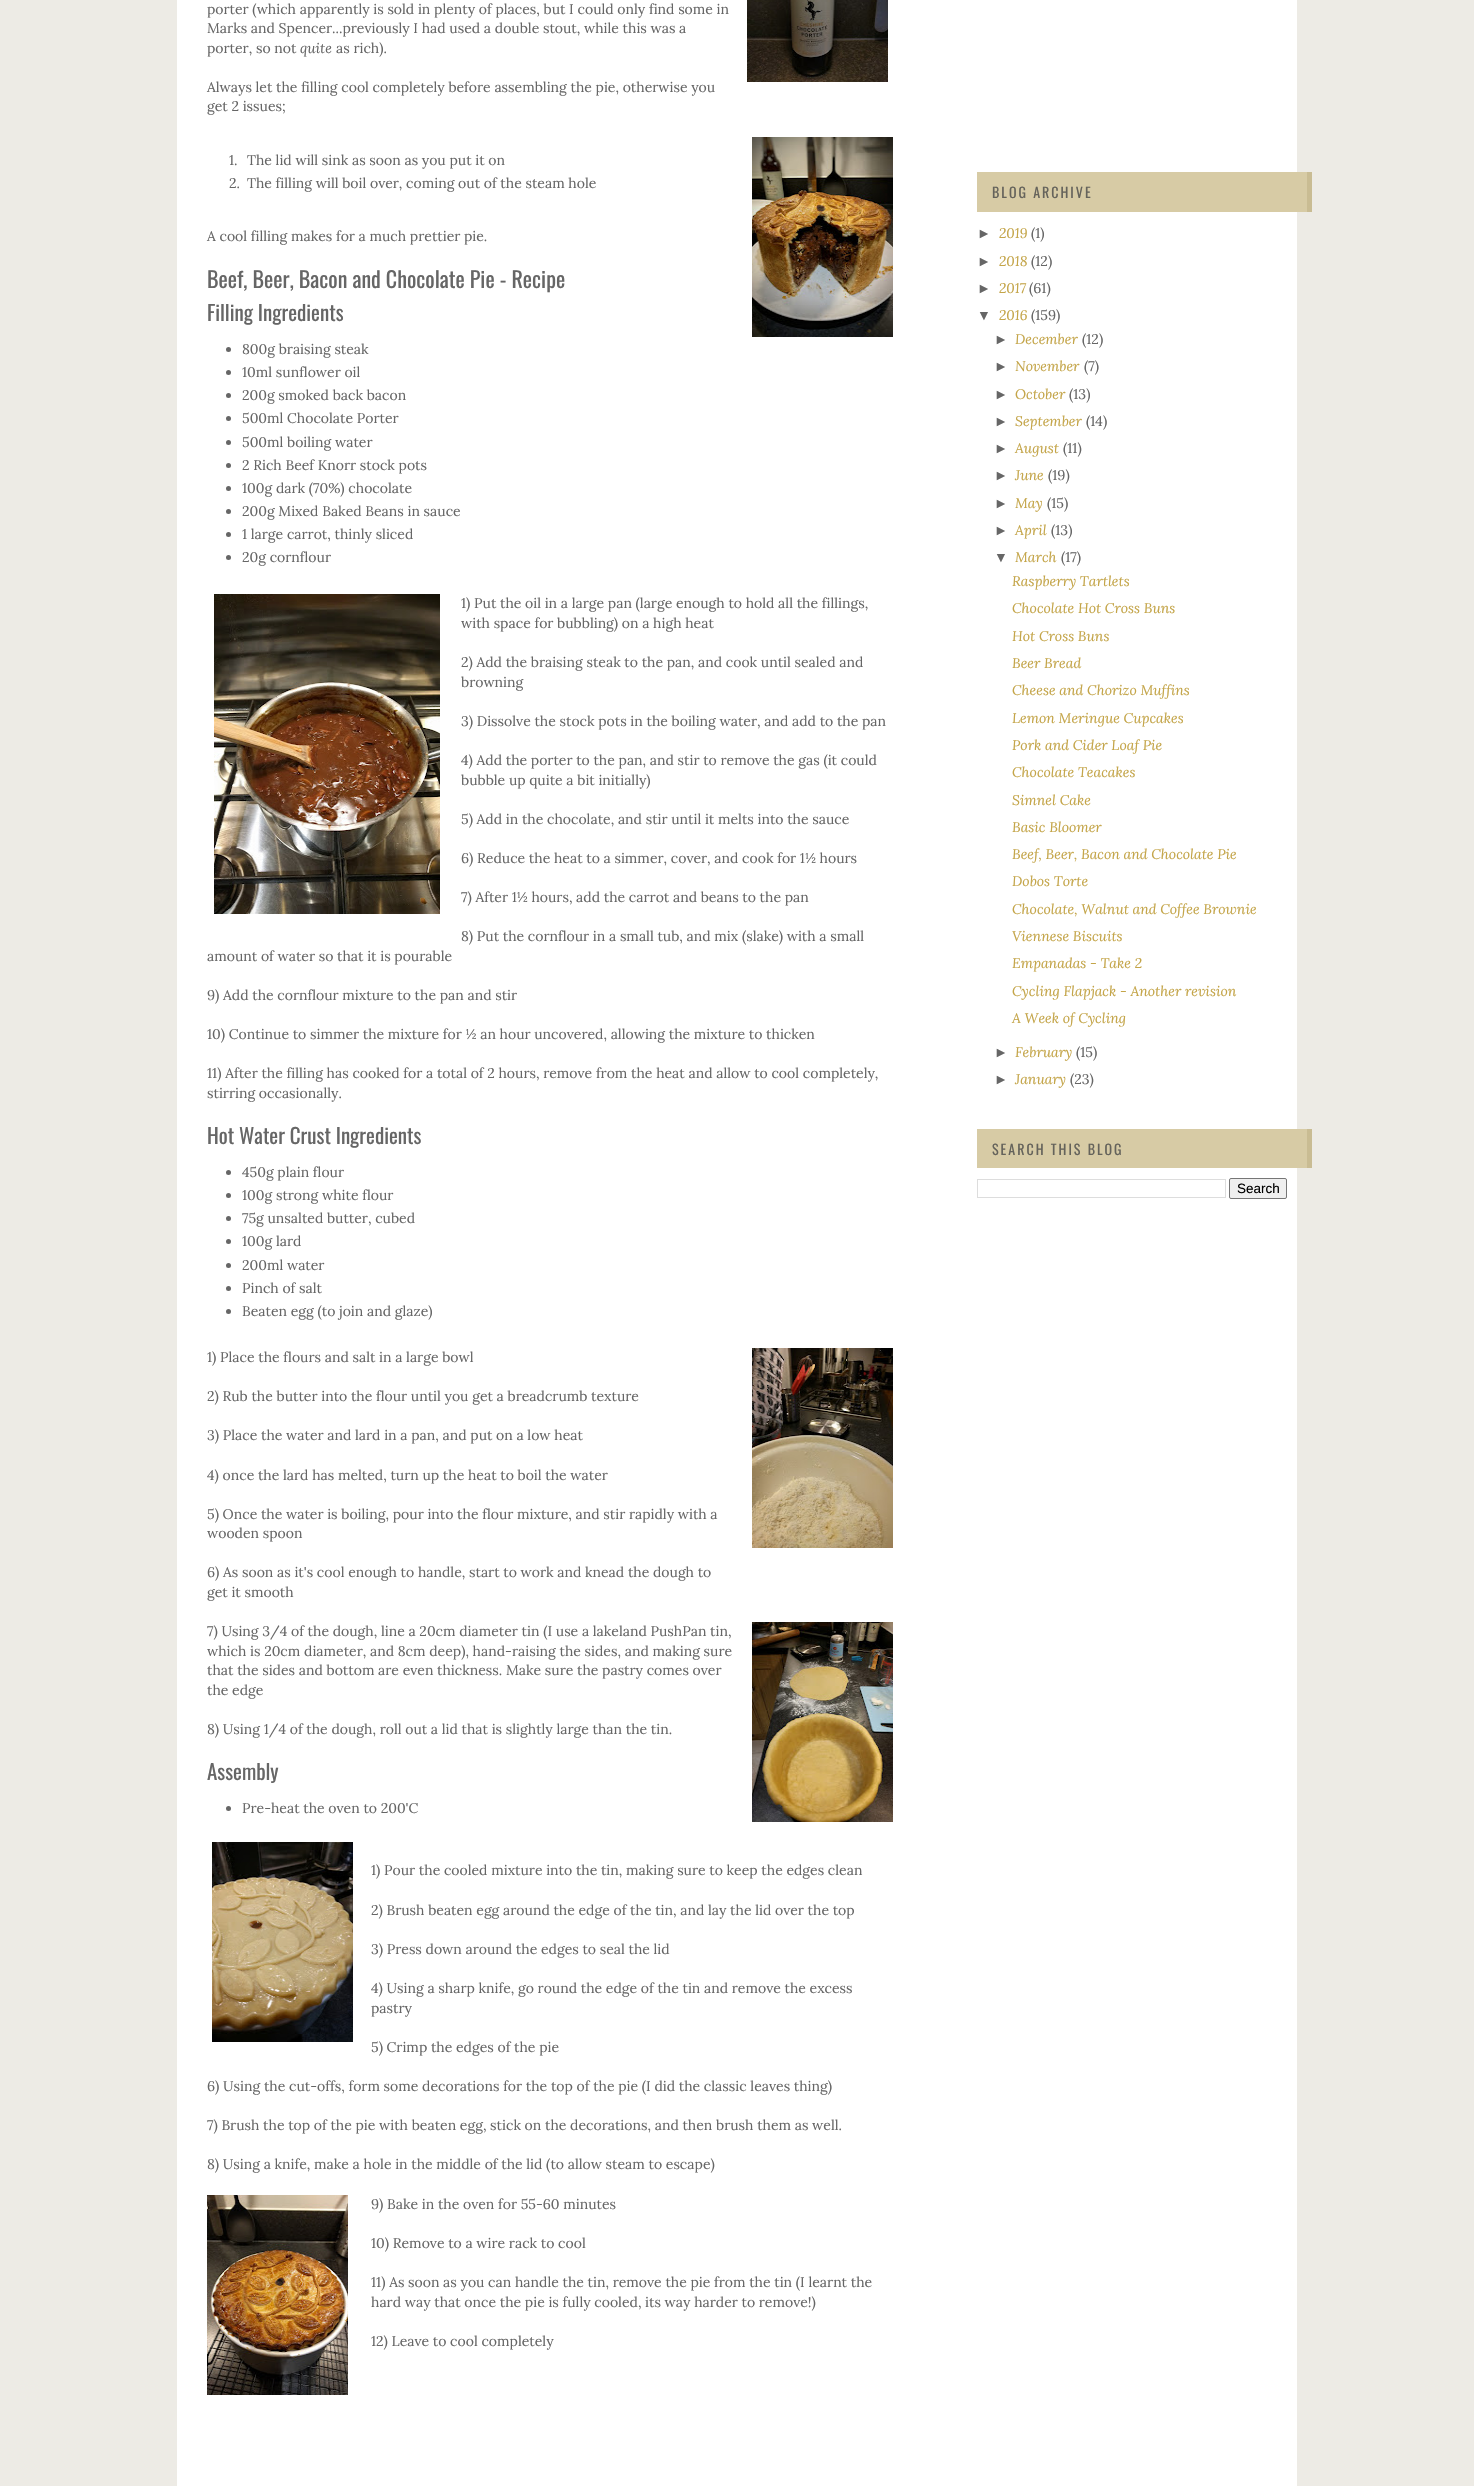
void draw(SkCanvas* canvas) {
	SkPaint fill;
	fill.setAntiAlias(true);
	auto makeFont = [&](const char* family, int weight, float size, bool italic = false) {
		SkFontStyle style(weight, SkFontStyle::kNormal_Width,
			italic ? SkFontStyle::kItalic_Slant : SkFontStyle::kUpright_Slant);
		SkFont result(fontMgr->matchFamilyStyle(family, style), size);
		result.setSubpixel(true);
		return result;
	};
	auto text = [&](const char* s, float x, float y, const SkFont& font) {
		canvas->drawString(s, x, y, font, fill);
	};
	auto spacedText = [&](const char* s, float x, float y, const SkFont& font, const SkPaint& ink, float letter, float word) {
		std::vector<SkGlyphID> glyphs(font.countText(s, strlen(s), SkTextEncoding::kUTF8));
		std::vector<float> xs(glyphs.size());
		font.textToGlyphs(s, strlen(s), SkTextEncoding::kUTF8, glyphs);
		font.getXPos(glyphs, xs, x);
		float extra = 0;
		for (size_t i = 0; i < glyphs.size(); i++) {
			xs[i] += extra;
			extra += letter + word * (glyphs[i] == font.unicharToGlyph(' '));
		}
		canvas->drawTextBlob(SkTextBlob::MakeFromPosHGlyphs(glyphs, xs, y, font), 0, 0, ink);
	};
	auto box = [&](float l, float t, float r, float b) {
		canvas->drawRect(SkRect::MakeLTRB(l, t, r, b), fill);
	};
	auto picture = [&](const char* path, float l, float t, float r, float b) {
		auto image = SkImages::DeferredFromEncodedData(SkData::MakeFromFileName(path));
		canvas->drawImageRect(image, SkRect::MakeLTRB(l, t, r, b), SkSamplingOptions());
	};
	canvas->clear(0xFFEDEBE5);
	fill.setColor(0xFFFFFFFF);
	box(177, 0, 1297, 2486);
	picture("image0.png", 747, 0, 888, 82);
	picture("image1.png", 752, 137, 893, 337);
	fill.setColor(0xFF666666);
	canvas->drawCircle(228.5f, 349.5f, 2.5f, fill);
	canvas->drawCircle(228.5f, 372.5f, 2.5f, fill);
	canvas->drawCircle(228.5f, 395.5f, 2.5f, fill);
	canvas->drawCircle(228.5f, 418.5f, 2.5f, fill);
	canvas->drawCircle(228.5f, 442.5f, 2.5f, fill);
	canvas->drawCircle(228.5f, 465.5f, 2.5f, fill);
	canvas->drawCircle(228.5f, 488.5f, 2.5f, fill);
	canvas->drawCircle(228.5f, 511.5f, 2.5f, fill);
	canvas->drawCircle(228.5f, 534.5f, 2.5f, fill);
	canvas->drawCircle(228.5f, 557.5f, 2.5f, fill);
	picture("image2.png", 214, 594, 440, 914);
	canvas->drawCircle(228.5f, 1172.5f, 2.5f, fill);
	canvas->drawCircle(228.5f, 1195.5f, 2.5f, fill);
	canvas->drawCircle(228.5f, 1218.5f, 2.5f, fill);
	canvas->drawCircle(228.5f, 1241.5f, 2.5f, fill);
	canvas->drawCircle(228.5f, 1265.5f, 2.5f, fill);
	canvas->drawCircle(228.5f, 1288.5f, 2.5f, fill);
	canvas->drawCircle(228.5f, 1311.5f, 2.5f, fill);
	picture("image3.png", 752, 1348, 893, 1548);
	picture("image4.png", 752, 1622, 893, 1822);
	canvas->drawCircle(228.5f, 1808.5f, 2.5f, fill);
	picture("image5.png", 212, 1842, 353, 2042);
	picture("image6.png", 207, 2195, 348, 2395);
	fill.setColor(0xFFD7CBA5);
	box(977, 172, 1307, 212);
	fill.setColor(0xFFC9BC93);
	box(1307, 172, 1312, 212);
	fill.setColor(0xFFD7CBA5);
	box(977, 1129, 1307, 1168);
	fill.setColor(0xFFC9BC93);
	box(1307, 1129, 1312, 1168);
	fill.setStyle(SkPaint::kStroke_Style);
	fill.setStrokeWidth(1);
	fill.setColor(0xFFDDDDDD);
	canvas->drawRect(SkRect::MakeLTRB(977.5f, 1179.5f, 1225.5f, 1197.5f), fill);
	fill.setStyle(SkPaint::kFill_Style);
	fill.setColor(0xFFEFEFEF);
	canvas->drawRoundRect(SkRect::MakeLTRB(1229.5f, 1178.5f, 1286.5f, 1198.5f), 1.5f, 1.5f, fill);
	fill.setStyle(SkPaint::kStroke_Style);
	fill.setColor(0xFF767676);
	canvas->drawRoundRect(SkRect::MakeLTRB(1229.5f, 1178.5f, 1286.5f, 1198.5f), 1.5f, 1.5f, fill);
	auto font1 = makeFont("Lora", 400, 14);
	fill.setStyle(SkPaint::kFill_Style);
	fill.setColor(0xFF666666);
	text("porter (which apparently is sold in plenty of places, but I could only find some in", 207, 14, font1);
	text("Marks and Spencer...previously I had used a double stout, while this was a", 207, 33, font1);
	text("porter, so not", 207, 53, font1);
	auto font2 = makeFont("Lora", 400, 14, true);
	text("quite", 300, 53, font2);
	text("as rich).", 336, 53, font1);
	text("Always let the filling cool completely before assembling the pie, otherwise you", 207, 92, font1);
	text("get 2 issues;", 207, 111, font1);
	text("1.", 229, 165, font1);
	text("The lid will sink as soon as you put it on", 247, 165, font1);
	text("2.", 229, 188, font1);
	text("The filling will boil over, coming out of the steam hole", 247, 188, font1);
	text("A cool filling makes for a much prettier pie.", 207, 241, font1);
	auto font3 = makeFont("Oswald", 400, 22);
	text("Beef, Beer, Bacon and Chocolate Pie - Recipe", 207, 288, font3);
	auto font4 = makeFont("Oswald", 400, 21);
	text("Filling Ingredients", 207, 321, font4);
	text("800g braising steak", 242, 354, font1);
	text("10ml sunflower oil", 242, 377, font1);
	text("200g smoked back bacon", 242, 400, font1);
	text("500ml Chocolate Porter", 242, 423, font1);
	text("500ml boiling water", 242, 447, font1);
	text("2 Rich Beef Knorr stock pots", 242, 470, font1);
	text("100g dark (70%) chocolate", 242, 493, font1);
	text("200g Mixed Baked Beans in sauce", 242, 516, font1);
	text("1 large carrot, thinly sliced", 242, 539, font1);
	text("20g cornflour", 242, 562, font1);
	text("1) Put the oil in a large pan (large enough to hold all the fillings,", 461, 608, font1);
	text("with space for bubbling) on a high heat", 461, 628, font1);
	text("2) Add the braising steak to the pan, and cook until sealed and", 461, 667, font1);
	text("browning", 461, 687, font1);
	text("3) Dissolve the stock pots in the boiling water, and add to the pan", 461, 726, font1);
	text("4) Add the porter to the pan, and stir to remove the gas (it could", 461, 765, font1);
	text("bubble up quite a bit initially)", 461, 785, font1);
	text("5) Add in the chocolate, and stir until it melts into the sauce", 461, 824, font1);
	text("6) Reduce the heat to a simmer, cover, and cook for 1½ hours", 461, 863, font1);
	text("7) After 1½ hours, add the carrot and beans to the pan", 461, 902, font1);
	text("8) Put the cornflour in a small tub, and mix (slake) with a small", 461, 941, font1);
	text("amount of water so that it is pourable", 207, 961, font1);
	text("9) Add the cornflour mixture to the pan and stir", 207, 1000, font1);
	text("10) Continue to simmer the mixture for ½ an hour uncovered, allowing the mixture to thicken", 207, 1039, font1);
	text("11) After the filling has cooked for a total of 2 hours, remove from the heat and allow to cool completely,", 207, 1078, font1);
	text("stirring occasionally.", 207, 1098, font1);
	text("Hot Water Crust Ingredients", 207, 1144, font4);
	text("450g plain flour", 242, 1177, font1);
	text("100g strong white flour", 242, 1200, font1);
	text("75g unsalted butter, cubed", 242, 1223, font1);
	text("100g lard", 242, 1246, font1);
	text("200ml water", 242, 1270, font1);
	text("Pinch of salt", 242, 1293, font1);
	text("Beaten egg (to join and glaze)", 242, 1316, font1);
	text("1) Place the flours and salt in a large bowl", 207, 1362, font1);
	text("2) Rub the butter into the flour until you get a breadcrumb texture", 207, 1401, font1);
	text("3) Place the water and lard in a pan, and put on a low heat", 207, 1440, font1);
	text("4) once the lard has melted, turn up the heat to boil the water", 207, 1480, font1);
	text("5) Once the water is boiling, pour into the flour mixture, and stir rapidly with a", 207, 1519, font1);
	text("wooden spoon", 207, 1538, font1);
	text("6) As soon as it's cool enough to handle, start to work and knead the dough to", 207, 1577, font1);
	text("get it smooth", 207, 1597, font1);
	text("7) Using 3/4 of the dough, line a 20cm diameter tin (I use a lakeland PushPan tin,", 207, 1636, font1);
	text("which is 20cm diameter, and 8cm deep), hand-raising the sides, and making sure", 207, 1656, font1);
	text("that the sides and bottom are even thickness. Make sure the pastry comes over", 207, 1675, font1);
	text("the edge", 207, 1695, font1);
	text("8) Using 1/4 of the dough, roll out a lid that is slightly large than the tin.", 207, 1734, font1);
	text("Assembly", 207, 1780, font4);
	text("Pre-heat the oven to 200'C", 242, 1813, font1);
	text("1) Pour the cooled mixture into the tin, making sure to keep the edges clean", 371, 1875, font1);
	text("2) Brush beaten egg around the edge of the tin, and lay the lid over the top", 371, 1915, font1);
	text("3) Press down around the edges to seal the lid", 371, 1954, font1);
	text("4) Using a sharp knife, go round the edge of the tin and remove the excess", 371, 1993, font1);
	text("pastry", 371, 2013, font1);
	text("5) Crimp the edges of the pie", 371, 2052, font1);
	text("6) Using the cut-offs, form some decorations for the top of the pie (I did the classic leaves thing)", 207, 2091, font1);
	text("7) Brush the top of the pie with beaten egg, stick on the decorations, and then brush them as well.", 207, 2130, font1);
	text("8) Using a knife, make a hole in the middle of the lid (to allow steam to escape)", 207, 2169, font1);
	text("9) Bake in the oven for 55-60 minutes", 371, 2209, font1);
	text("10) Remove to a wire rack to cool", 371, 2248, font1);
	text("11) As soon as you can handle the tin, remove the pie from the tin (I learnt the", 371, 2287, font1);
	text("hard way that once the pie is fully cooled, its way harder to remove!)", 371, 2307, font1);
	text("12) Leave to cool completely", 371, 2346, font1);
	auto font5 = makeFont("Oswald", 400, 14);
	fill.setColor(0xFF65635B);
	spacedText("BLOG ARCHIVE", 992, 198, font5, fill, 2, 0);
	auto font6 = makeFont("Liberation Sans", 400, 14, true);
	fill.setColor(0xFF666666);
	text("►", 977, 238, font6);
	fill.setColor(0xFFC4A549);
	text("2019", 999, 238, font2);
	fill.setColor(0xFF666666);
	text("(1)", 1031, 238, font1);
	text("►", 977, 266, font6);
	fill.setColor(0xFFC4A549);
	text("2018", 999, 266, font2);
	fill.setColor(0xFF666666);
	text("(12)", 1031, 266, font1);
	text("►", 977, 293, font6);
	fill.setColor(0xFFC4A549);
	text("2017", 999, 293, font2);
	fill.setColor(0xFF666666);
	text("(61)", 1029, 293, font1);
	text("▼", 977, 320, font6);
	fill.setColor(0xFFC4A549);
	text("2016", 999, 320, font2);
	fill.setColor(0xFF666666);
	text("(159)", 1031, 320, font1);
	text("►", 994, 344, font6);
	fill.setColor(0xFFC4A549);
	text("December", 1015, 344, font2);
	fill.setColor(0xFF666666);
	text("(12)", 1082, 344, font1);
	text("►", 994, 371, font6);
	fill.setColor(0xFFC4A549);
	text("November", 1015, 371, font2);
	fill.setColor(0xFF666666);
	text("(7)", 1084, 371, font1);
	text("►", 994, 399, font6);
	fill.setColor(0xFFC4A549);
	text("October", 1015, 399, font2);
	fill.setColor(0xFF666666);
	text("(13)", 1069, 399, font1);
	text("►", 994, 426, font6);
	fill.setColor(0xFFC4A549);
	text("September", 1015, 426, font2);
	fill.setColor(0xFF666666);
	text("(14)", 1086, 426, font1);
	text("►", 994, 453, font6);
	fill.setColor(0xFFC4A549);
	text("August", 1015, 453, font2);
	fill.setColor(0xFF666666);
	text("(11)", 1063, 453, font1);
	text("►", 994, 480, font6);
	fill.setColor(0xFFC4A549);
	text("June", 1015, 480, font2);
	fill.setColor(0xFF666666);
	text("(19)", 1048, 480, font1);
	text("►", 994, 508, font6);
	fill.setColor(0xFFC4A549);
	text("May", 1015, 508, font2);
	fill.setColor(0xFF666666);
	text("(15)", 1047, 508, font1);
	text("►", 994, 535, font6);
	fill.setColor(0xFFC4A549);
	text("April", 1015, 535, font2);
	fill.setColor(0xFF666666);
	text("(13)", 1051, 535, font1);
	text("▼", 994, 562, font6);
	fill.setColor(0xFFC4A549);
	text("March", 1015, 562, font2);
	fill.setColor(0xFF666666);
	text("(17)", 1061, 562, font1);
	fill.setColor(0xFFC4A549);
	text("Raspberry Tartlets", 1012, 586, font2);
	text("Chocolate Hot Cross Buns", 1012, 613, font2);
	text("Hot Cross Buns", 1012, 641, font2);
	text("Beer Bread", 1012, 668, font2);
	text("Cheese and Chorizo Muffins", 1012, 695, font2);
	text("Lemon Meringue Cupcakes", 1012, 723, font2);
	text("Pork and Cider Loaf Pie", 1012, 750, font2);
	text("Chocolate Teacakes", 1012, 777, font2);
	text("Simnel Cake", 1012, 805, font2);
	text("Basic Bloomer", 1012, 832, font2);
	text("Beef, Beer, Bacon and Chocolate Pie", 1012, 859, font2);
	text("Dobos Torte", 1012, 886, font2);
	text("Chocolate, Walnut and Coffee Brownie", 1012, 914, font2);
	text("Viennese Biscuits", 1012, 941, font2);
	text("Empanadas - Take 2", 1012, 968, font2);
	text("Cycling Flapjack - Another revision", 1012, 996, font2);
	text("A Week of Cycling", 1012, 1023, font2);
	fill.setColor(0xFF666666);
	text("►", 994, 1057, font6);
	fill.setColor(0xFFC4A549);
	text("February", 1015, 1057, font2);
	fill.setColor(0xFF666666);
	text("(15)", 1076, 1057, font1);
	text("►", 994, 1084, font6);
	fill.setColor(0xFFC4A549);
	text("January", 1015, 1084, font2);
	fill.setColor(0xFF666666);
	text("(23)", 1070, 1084, font1);
	fill.setColor(0xFF65635B);
	spacedText("SEARCH THIS BLOG", 992, 1155, font5, fill, 2, 0);
	auto font7 = makeFont("Liberation Sans", 400, 13.5f);
	fill.setColor(0xFF000000);
	text("Search", 1237, 1193, font7);
}
